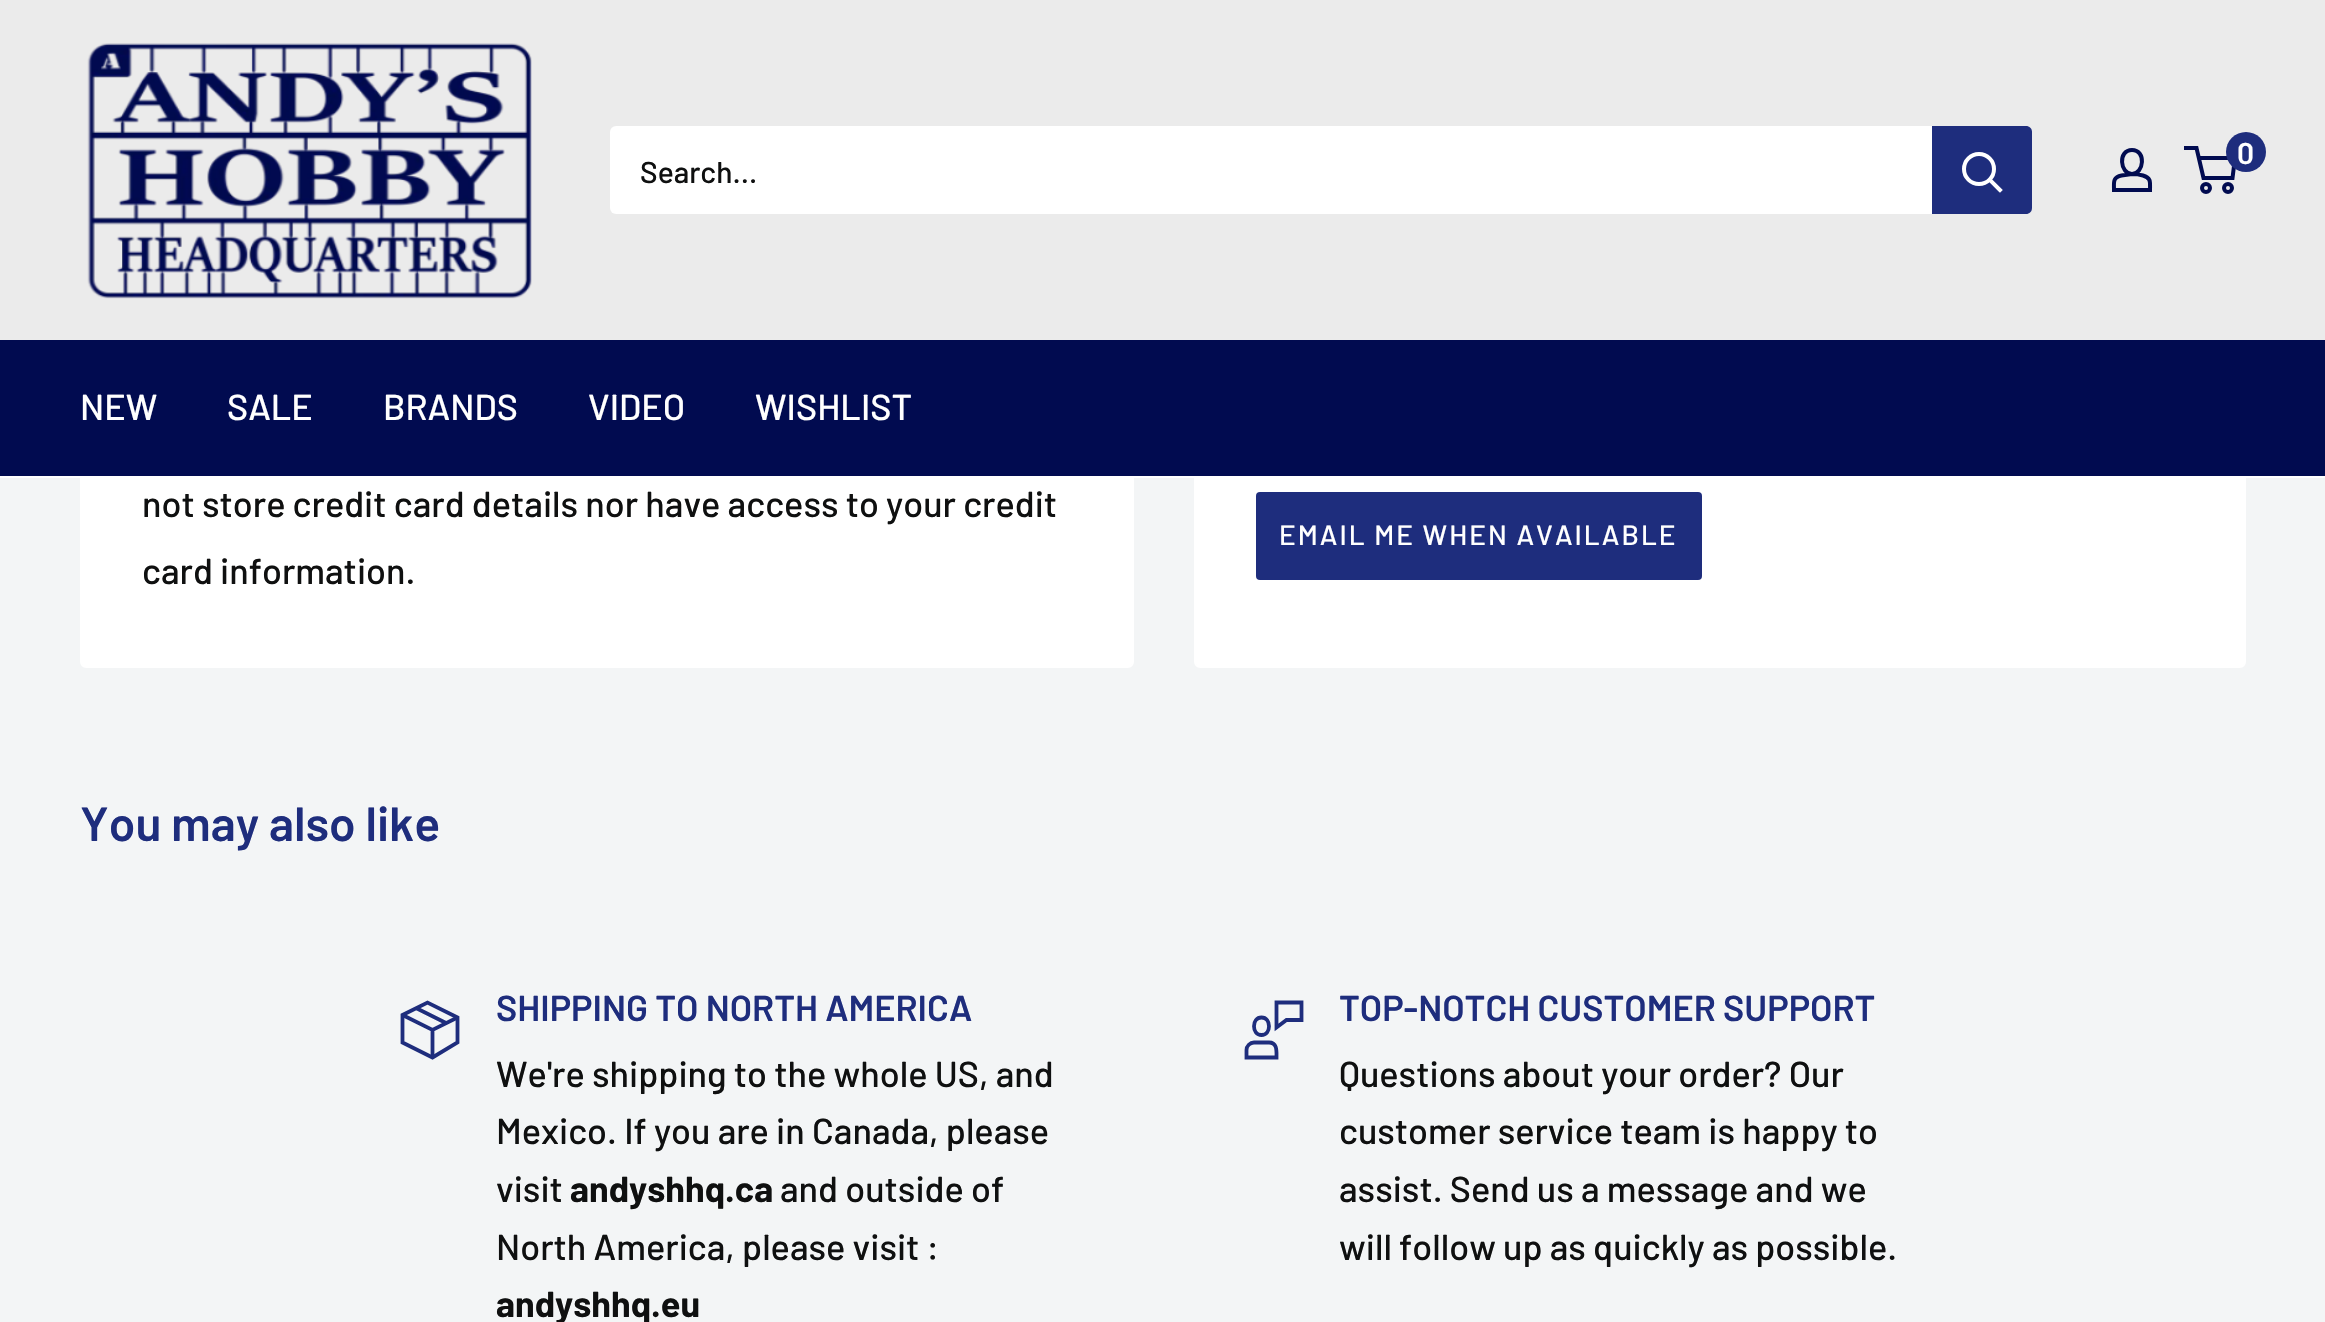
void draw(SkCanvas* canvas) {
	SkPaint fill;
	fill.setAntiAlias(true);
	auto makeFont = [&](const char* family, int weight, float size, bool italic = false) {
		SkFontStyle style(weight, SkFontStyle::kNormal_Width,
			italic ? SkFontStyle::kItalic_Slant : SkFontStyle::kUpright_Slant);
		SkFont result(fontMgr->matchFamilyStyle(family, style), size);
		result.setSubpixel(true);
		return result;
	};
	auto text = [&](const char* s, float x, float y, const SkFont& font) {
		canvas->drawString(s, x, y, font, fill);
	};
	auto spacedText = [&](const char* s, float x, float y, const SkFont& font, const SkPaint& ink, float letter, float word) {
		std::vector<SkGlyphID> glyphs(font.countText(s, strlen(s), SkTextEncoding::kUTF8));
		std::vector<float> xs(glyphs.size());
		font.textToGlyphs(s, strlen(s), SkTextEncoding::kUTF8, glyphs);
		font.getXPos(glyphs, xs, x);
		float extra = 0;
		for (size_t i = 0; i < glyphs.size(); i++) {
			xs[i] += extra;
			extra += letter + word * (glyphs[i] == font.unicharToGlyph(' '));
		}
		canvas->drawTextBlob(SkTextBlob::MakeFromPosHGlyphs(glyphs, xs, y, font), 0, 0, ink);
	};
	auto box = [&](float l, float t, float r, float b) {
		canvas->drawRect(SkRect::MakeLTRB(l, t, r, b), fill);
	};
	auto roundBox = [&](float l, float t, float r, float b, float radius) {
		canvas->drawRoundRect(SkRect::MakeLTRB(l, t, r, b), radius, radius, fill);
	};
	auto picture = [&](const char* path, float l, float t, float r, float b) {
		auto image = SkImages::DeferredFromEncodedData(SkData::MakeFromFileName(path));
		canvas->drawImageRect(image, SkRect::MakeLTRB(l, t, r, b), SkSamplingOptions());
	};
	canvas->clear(0xFFF3F5F6);
	fill.setColor(0xFFFFFFFF);
	canvas->drawRoundRect(SkRect::MakeLTRB(81, 127, 1133, 667), 5, 5, fill);
	fill.setStyle(SkPaint::kStroke_Style);
	fill.setStrokeWidth(2);
	canvas->drawRoundRect(SkRect::MakeLTRB(81, 127, 1133, 667), 5, 5, fill);
	fill.setStyle(SkPaint::kFill_Style);
	canvas->drawRoundRect(SkRect::MakeLTRB(1195, -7, 2245, 667), 5, 5, fill);
	fill.setStyle(SkPaint::kStroke_Style);
	canvas->drawRoundRect(SkRect::MakeLTRB(1195, -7, 2245, 667), 5, 5, fill);
	fill.setStyle(SkPaint::kFill_Style);
	fill.setColor(0xFFEBEBEB);
	box(0, 0, 2325, 340);
	picture("image0.png", 87, 43, 532, 299);
	fill.setStyle(SkPaint::kStroke_Style);
	fill.setStrokeWidth(4);
	fill.setColor(0xFF010B50);
	canvas->drawPath(SkPathBuilder().moveTo(2132, 174).cubicTo(2136, 174, 2139.5f, 174.5f, 2143, 175.5f).cubicTo(2151.5f, 178, 2150, 182.5f, 2150, 190).lineTo(2114, 190).cubicTo(2114, 182, 2112.5f, 177.5f, 2121.5f, 175.5f).close().moveTo(2132, 174).cubicTo(2120, 174, 2117.5f, 150, 2132, 150).cubicTo(2146.5f, 150, 2144, 174, 2132, 174).close().detach(), fill);
	canvas->drawCircle(2206, 188, 4, fill);
	canvas->drawCircle(2228, 188, 4, fill);
	canvas->drawPath(SkPathBuilder().moveTo(2198.5f, 158).lineTo(2235, 158).lineTo(2232.5f, 178).lineTo(2203.5f, 178).lineTo(2196.5f, 148).lineTo(2184, 148).detach(), fill);
	fill.setStyle(SkPaint::kFill_Style);
	fill.setColor(0xFF1E2D7D);
	canvas->drawCircle(2246, 152, 20, fill);
	fill.setColor(0xFFFFFFFF);
	roundBox(610, 126, 2032, 214, 6);
	fill.setColor(0xFF1E2D7D);
	canvas->drawPath(SkPathBuilder().moveTo(1932, 126).lineTo(2026, 126).cubicTo(2029.5f, 126, 2032, 128.5f, 2032, 132).lineTo(2032, 208).cubicTo(2032, 211.5f, 2029.5f, 214, 2026, 214).lineTo(1932, 214).close().detach(), fill);
	fill.setStyle(SkPaint::kStroke_Style);
	fill.setStrokeCap(SkPaint::kSquare_Cap);
	fill.setColor(0xFFFFFFFF);
	canvas->drawPath(SkPathBuilder().moveTo(2000, 190).lineTo(1990, 180).detach(), fill);
	fill.setStrokeCap(SkPaint::kButt_Cap);
	canvas->drawCircle(1979, 169, 15, fill);
	fill.setStyle(SkPaint::kFill_Style);
	box(0, 476, 2325, 478);
	fill.setColor(0xFF010B50);
	box(0, 340, 2325, 476);
	fill.setColor(0xFF1E2D7D);
	roundBox(1256, 492, 1702, 580, 4);
	fill.setStyle(SkPaint::kStroke_Style);
	fill.setStrokeWidth(3.8f);
	canvas->drawPath(SkPathBuilder().moveTo(416, 1008).lineTo(446, 1023).moveTo(457.5f, 1017.5f).lineTo(432.5f, 1030).lineTo(402.5f, 1015).moveTo(432.5f, 1030).lineTo(432.5f, 1057.5f).detach(), fill);
	fill.setStrokeCap(SkPaint::kSquare_Cap);
	canvas->drawPath(SkPathBuilder().moveTo(457.5f, 1017.5f).lineTo(457.5f, 1042.5f).lineTo(432.5f, 1057.5f).lineTo(402.5f, 1042.5f).lineTo(402.5f, 1015).lineTo(427.5f, 1002.5f).close().detach(), fill);
	canvas->drawPath(SkPathBuilder().moveTo(1269, 1042.5f).lineTo(1254, 1042.5f).cubicTo(1250, 1042.5f, 1246.5f, 1046, 1246.5f, 1050).lineTo(1246.5f, 1057.5f).lineTo(1276.5f, 1057.5f).cubicTo(1276.5f, 1051.5f, 1277.5f, 1042.5f, 1269, 1042.5f).close().moveTo(1261.5f, 1035).cubicTo(1251.5f, 1035, 1251.5f, 1017.5f, 1261.5f, 1017.5f).cubicTo(1271.5f, 1017.5f, 1271.5f, 1035, 1261.5f, 1035).close().moveTo(1276.5f, 1002.5f).lineTo(1276.5f, 1027.5f).lineTo(1286.5f, 1020).lineTo(1301.5f, 1020).lineTo(1301.5f, 1002.5f).close().detach(), fill);
	auto font1 = makeFont("Barlow", 600, 30);
	fill.setStyle(SkPaint::kFill_Style);
	fill.setColor(0xFFFFFFFF);
	text("0", 2237, 164, font1);
	auto font2 = makeFont("Barlow", 500, 30);
	fill.setColor(0xFF0F1010);
	text("Search...", 640, 183, font2);
	auto font3 = makeFont("Barlow", 500, 36);
	fill.setColor(0xFFFFFFFF);
	text("NEW", 80, 420, font3);
	text("SALE", 227, 420, font3);
	text("BRANDS", 383, 420, font3);
	text("VIDEO", 588, 420, font3);
	text("WISHLIST", 755, 420, font3);
	fill.setColor(0xFF0F1010);
	text("not store credit card details nor have access to your credit", 142, 517, font3);
	text("card information.", 142, 584, font3);
	auto font4 = makeFont("Barlow", 500, 28);
	fill.setColor(0xFFFFFFFF);
	spacedText("EMAIL ME WHEN AVAILABLE", 1279, 545, font4, fill, 2, 0);
	auto font5 = makeFont("Barlow", 600, 48);
	fill.setColor(0xFF1E2D7D);
	text("You may also like", 80, 841, font5);
	auto font6 = makeFont("Barlow", 600, 36);
	text("SHIPPING TO NORTH AMERICA", 496, 1021, font6);
	fill.setColor(0xFF0F1010);
	text("We're shipping to the whole US, and", 496, 1087, font3);
	text("Mexico. If you are in Canada, please", 496, 1144, font3);
	text("visit", 496, 1202, font3);
	auto font7 = makeFont("Barlow", 700, 36);
	text("andyshhq.ca", 570, 1202, font7);
	text("and outside of", 780, 1202, font3);
	text("North America, please visit :", 496, 1260, font3);
	text("andyshhq.eu", 496, 1317, font7);
	fill.setColor(0xFF1E2D7D);
	text("TOP-NOTCH CUSTOMER SUPPORT", 1339, 1021, font6);
	fill.setColor(0xFF0F1010);
	text("Questions about your order? Our", 1339, 1087, font3);
	text("customer service team is happy to", 1339, 1144, font3);
	text("assist. Send us a message and we", 1339, 1202, font3);
	text("will follow up as quickly as possible.", 1339, 1260, font3);
}
